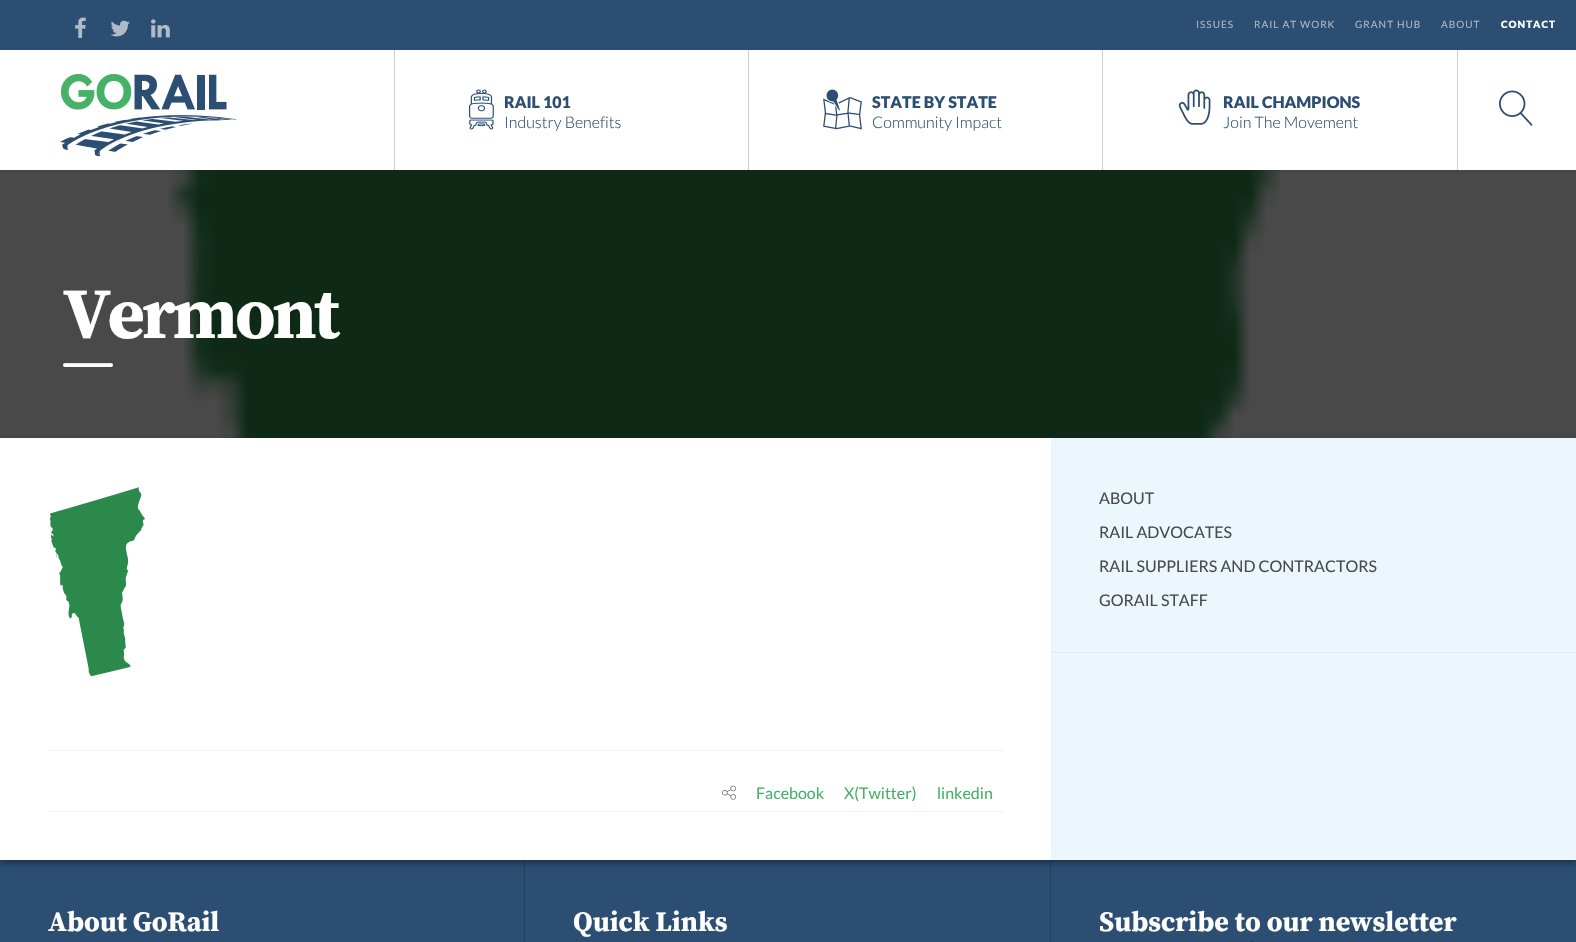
void draw(SkCanvas* canvas) {
	SkPaint fill;
	fill.setAntiAlias(true);
	auto makeFont = [&](const char* family, int weight, float size, bool italic = false) {
		SkFontStyle style(weight, SkFontStyle::kNormal_Width,
			italic ? SkFontStyle::kItalic_Slant : SkFontStyle::kUpright_Slant);
		SkFont result(fontMgr->matchFamilyStyle(family, style), size);
		result.setSubpixel(true);
		return result;
	};
	auto text = [&](const char* s, float x, float y, const SkFont& font) {
		canvas->drawString(s, x, y, font, fill);
	};
	auto spacedText = [&](const char* s, float x, float y, const SkFont& font, const SkPaint& ink, float letter, float word) {
		std::vector<SkGlyphID> glyphs(font.countText(s, strlen(s), SkTextEncoding::kUTF8));
		std::vector<float> xs(glyphs.size());
		font.textToGlyphs(s, strlen(s), SkTextEncoding::kUTF8, glyphs);
		font.getXPos(glyphs, xs, x);
		float extra = 0;
		for (size_t i = 0; i < glyphs.size(); i++) {
			xs[i] += extra;
			extra += letter + word * (glyphs[i] == font.unicharToGlyph(' '));
		}
		canvas->drawTextBlob(SkTextBlob::MakeFromPosHGlyphs(glyphs, xs, y, font), 0, 0, ink);
	};
	auto box = [&](float l, float t, float r, float b) {
		canvas->drawRect(SkRect::MakeLTRB(l, t, r, b), fill);
	};
	auto roundBox = [&](float l, float t, float r, float b, float radius) {
		canvas->drawRoundRect(SkRect::MakeLTRB(l, t, r, b), radius, radius, fill);
	};
	auto picture = [&](const char* path, float l, float t, float r, float b) {
		auto image = SkImages::DeferredFromEncodedData(SkData::MakeFromFileName(path));
		canvas->drawImageRect(image, SkRect::MakeLTRB(l, t, r, b), SkSamplingOptions());
	};
	canvas->clear(0xFFF2F2F2);
	fill.setColor(0xFF2B4E72);
	box(0, 0, 1576, 50);
	picture("image0.png", 75, 17, 86, 38);
	picture("image1.png", 110, 20, 130, 37);
	picture("image2.png", 151, 19, 170, 38);
	fill.setColor(0x1A000000);
	fill.setMaskFilter(SkMaskFilter::MakeBlur(kNormal_SkBlurStyle, 2.5f));
	canvas->drawRect(SkRect::MakeLTRB(0, 51, 1576, 171), fill);
	fill.setMaskFilter(nullptr);
	fill.setColor(0xFFFFFFFF);
	box(0, 50, 1576, 170);
	picture("image3.png", 60, 74, 238, 157);
	fill.setColor(0xFFCCCCCC);
	box(748, 50, 749, 170);
	box(394, 50, 395, 170);
	picture("image4.png", 469, 89, 494, 130);
	box(1102, 50, 1103, 170);
	picture("image5.png", 823, 89, 862, 130);
	box(1457, 50, 1458, 170);
	picture("image6.png", 1178, 89, 1211, 125);
	picture("image7.png", 1499, 90, 1533, 126);
	picture("image8.png", 168, 170, 1281, 438);
	fill.setColor(0x73000000);
	box(0, 170, 1576, 438);
	box(0, 170, 1576, 438);
	fill.setColor(0xFFFFFFFF);
	roundBox(63, 363, 113, 367, 2);
	fill.setColor(0x1A000000);
	box(64, 363, 112, 364);
	fill.setColor(0xFF2B4E72);
	box(0, 860, 1576, 942);
	fill.setColor(0xFF24415F);
	box(524, 860, 525, 942);
	box(1050, 860, 1051, 942);
	fill.setColor(0x3B000000);
	fill.setMaskFilter(SkMaskFilter::MakeBlur(kNormal_SkBlurStyle, 3));
	canvas->drawRect(SkRect::MakeLTRB(0, 441, 1576, 863), fill);
	fill.setMaskFilter(nullptr);
	fill.setColor(0x29000000);
	fill.setMaskFilter(SkMaskFilter::MakeBlur(kNormal_SkBlurStyle, 3));
	canvas->drawRect(SkRect::MakeLTRB(0, 441, 1576, 863), fill);
	fill.setMaskFilter(nullptr);
	fill.setColor(0xFFFFFFFF);
	box(0, 438, 1051, 860);
	fill.setColor(0xFFEBF7FD);
	box(1051, 438, 1576, 860);
	fill.setColor(0xFFD4EEFB);
	box(1051, 652, 1576, 653);
	picture("image9.png", 50, 487, 145, 677);
	fill.setColor(0xFFF2F2F2);
	box(48, 750, 1003, 751);
	box(48, 811, 1003, 812);
	picture("image10.png", 722, 785, 736, 800);
	fill.setColor(0xFF203D5A);
	canvas->drawPath(SkPathBuilder(SkPathFillType::kEvenOdd).moveTo(1255, 942).cubicTo(1254, 941, 1253, 941, 1252, 941).lineTo(1083, 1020).cubicTo(1082, 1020, 1081, 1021, 1081, 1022).cubicTo(1081, 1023, 1082, 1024, 1082, 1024).lineTo(1130, 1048).cubicTo(1131, 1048, 1132, 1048, 1133, 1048).lineTo(1180, 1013).lineTo(1143, 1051).lineTo(1145, 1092).cubicTo(1146, 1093, 1144, 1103, 1149, 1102).cubicTo(1151, 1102, 1173, 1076, 1176, 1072).lineTo(1208, 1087).lineTo(1210, 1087).lineTo(1211, 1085).lineTo(1256, 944).cubicTo(1256, 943, 1256, 942, 1255, 942).close().detach(), fill);
	auto font1 = makeFont("Lato", 400, 10);
	fill.setColor(0xFFAAB7C4);
	spacedText("ISSUES", 1196, 28, font1, fill, 1, 0);
	spacedText("RAIL AT WORK", 1254, 28, font1, fill, 1, 0);
	spacedText("GRANT HUB", 1355, 28, font1, fill, 1, 0);
	spacedText("ABOUT", 1441, 28, font1, fill, 1, 0);
	auto font2 = makeFont("Lato", 900, 10);
	fill.setColor(0xFFFFFFFF);
	spacedText("CONTACT", 1501, 28, font2, fill, 1, 0);
	auto font3 = makeFont("Lato", 900, 16);
	fill.setColor(0xFF2B4E72);
	text("RAIL 101", 504, 108, font3);
	auto font4 = makeFont("Lato", 300, 16);
	text("Industry Benefits", 504, 128, font4);
	text("STATE BY STATE", 872, 108, font3);
	text("Community Impact", 872, 128, font4);
	text("RAIL CHAMPIONS", 1223, 108, font3);
	text("Join The Movement", 1223, 128, font4);
	auto font5 = makeFont("Source Serif Pro", 700, 72);
	fill.setColor(0xFFFFFFFF);
	spacedText("Vermont", 63, 338, font5, fill, -3, 0);
	auto font6 = makeFont("Lato", 400, 16);
	fill.setColor(0xFF4A4A4A);
	text("ABOUT", 1099, 504, font6);
	text("RAIL ADVOCATES", 1099, 538, font6);
	text("RAIL SUPPLIERS AND CONTRACTORS", 1099, 572, font6);
	text("GORAIL STAFF", 1099, 606, font6);
	fill.setColor(0xFF45B267);
	text("Facebook", 756, 799, font6);
	text("X(Twitter)", 844, 799, font6);
	text("linkedin", 937, 799, font6);
	auto font7 = makeFont("Source Serif Pro", 700, 28);
	fill.setColor(0xFFFFFFFF);
	text("About GoRail", 48, 931, font7);
	text("Quick Links", 573, 931, font7);
	text("Subscribe to our newsletter", 1099, 931, font7);
}
